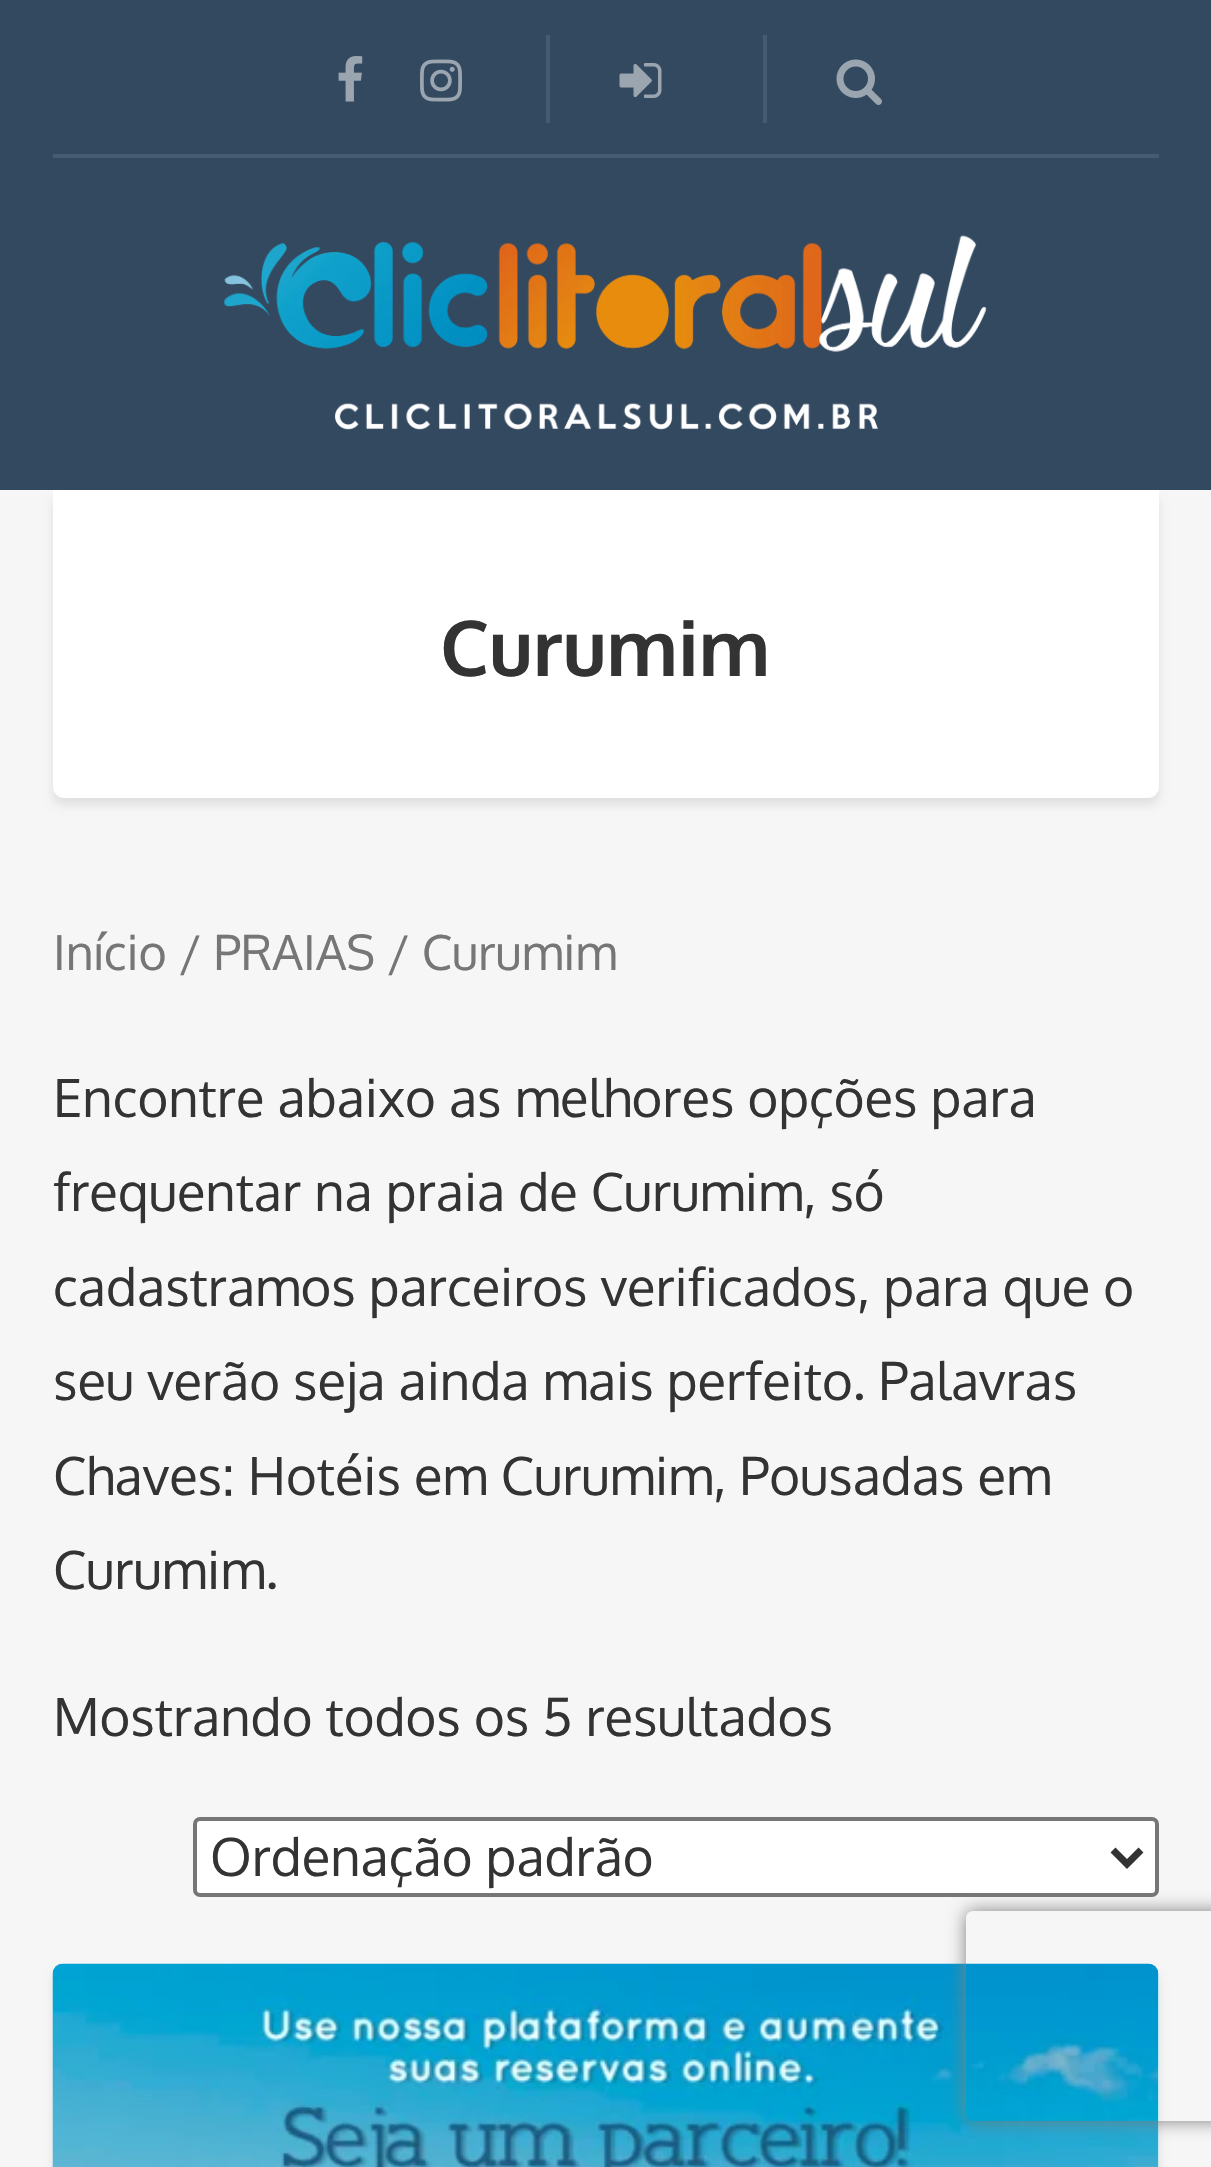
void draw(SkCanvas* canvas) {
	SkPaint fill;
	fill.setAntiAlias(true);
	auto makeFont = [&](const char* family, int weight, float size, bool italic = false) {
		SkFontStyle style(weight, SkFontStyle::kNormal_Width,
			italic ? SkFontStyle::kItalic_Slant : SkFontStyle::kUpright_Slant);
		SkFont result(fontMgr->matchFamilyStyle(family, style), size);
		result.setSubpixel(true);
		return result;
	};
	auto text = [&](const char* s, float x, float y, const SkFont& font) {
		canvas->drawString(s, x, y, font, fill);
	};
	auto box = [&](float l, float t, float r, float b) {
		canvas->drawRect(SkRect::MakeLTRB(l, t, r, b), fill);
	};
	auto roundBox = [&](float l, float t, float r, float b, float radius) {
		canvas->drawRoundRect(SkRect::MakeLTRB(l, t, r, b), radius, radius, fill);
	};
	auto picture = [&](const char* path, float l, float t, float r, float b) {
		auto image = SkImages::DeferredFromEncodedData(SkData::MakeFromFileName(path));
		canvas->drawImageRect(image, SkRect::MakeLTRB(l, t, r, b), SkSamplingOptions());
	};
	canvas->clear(0xFFF6F6F6);
	fill.setColor(0xFF334960);
	box(0, 0, 1211, 490);
	picture("image0.png", 338, 56, 363, 102);
	picture("image1.png", 420, 59, 462, 102);
	fill.setColor(0xFF475B70);
	box(546, 35, 550, 123);
	picture("image2.png", 619, 63, 662, 98);
	box(763, 35, 767, 123);
	picture("image3.png", 836, 59, 882, 105);
	box(53, 154, 1159, 158);
	picture("image4.png", 223, 235, 987, 430);
	fill.setColor(0x17000000);
	fill.setMaskFilter(SkMaskFilter::MakeBlur(kNormal_SkBlurStyle, 5));
	canvas->drawRoundRect(SkRect::MakeLTRB(53, 497, 1159, 805), 11, 11, fill);
	fill.setMaskFilter(nullptr);
	fill.setColor(0xFFFFFFFF);
	canvas->drawPath(SkPathBuilder().moveTo(53, 490).lineTo(1159, 490).lineTo(1159, 787).cubicTo(1159, 793, 1154, 798, 1148, 798).lineTo(64, 798).cubicTo(58, 798, 53, 793, 53, 787).close().detach(), fill);
	canvas->drawRoundRect(SkRect::MakeLTRB(195, 1819, 1157, 1895), 5, 5, fill);
	fill.setStyle(SkPaint::kStroke_Style);
	fill.setStrokeWidth(4);
	fill.setColor(0xFF767676);
	canvas->drawRoundRect(SkRect::MakeLTRB(195, 1819, 1157, 1895), 5, 5, fill);
	fill.setStrokeWidth(7);
	fill.setColor(0xFF333333);
	canvas->drawPath(SkPathBuilder().moveTo(1113, 1850).lineTo(1127, 1864).lineTo(1141, 1850).detach(), fill);
	fill.setStyle(SkPaint::kFill_Style);
	fill.setColor(0x17000000);
	fill.setMaskFilter(SkMaskFilter::MakeBlur(kNormal_SkBlurStyle, 5));
	canvas->drawRoundRect(SkRect::MakeLTRB(53, 1971, 1159, 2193), 11, 11, fill);
	fill.setMaskFilter(nullptr);
	fill.setColor(0xFFFFFFFF);
	roundBox(53, 1964, 1159, 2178, 11);
	picture("image5.png", 52, 1963, 1159, 2167);
	canvas->save();
	canvas->clipPath(SkPathBuilder(SkPathFillType::kEvenOdd).moveTo(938, 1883).lineTo(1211, 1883).lineTo(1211, 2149).lineTo(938, 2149).close().moveTo(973, 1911).lineTo(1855, 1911).cubicTo(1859, 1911, 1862, 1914, 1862, 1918).lineTo(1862, 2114).cubicTo(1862, 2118, 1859, 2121, 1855, 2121).lineTo(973, 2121).cubicTo(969, 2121, 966, 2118, 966, 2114).lineTo(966, 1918).cubicTo(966, 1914, 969, 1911, 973, 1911).close().detach(), true);
	fill.setColor(0xFF808080);
	fill.setMaskFilter(SkMaskFilter::MakeBlur(kNormal_SkBlurStyle, 9));
	canvas->drawRoundRect(SkRect::MakeLTRB(966, 1911, 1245, 2121), 7, 7, fill);
	fill.setMaskFilter(nullptr);
	canvas->restore();
	auto font1 = makeFont("Oxygen", 700, 77);
	fill.setColor(0xFF333333);
	text("Curumim", 440, 676, font1);
	auto font2 = makeFont("Oxygen", 400, 48.25f);
	fill.setColor(0xFF767676);
	text("Início / PRAIAS / Curumim", 53, 970, font2);
	auto font3 = makeFont("Oxygen", 400, 52.5f);
	fill.setColor(0xFF333333);
	text("Encontre abaixo as melhores opções para", 53, 1117, font3);
	text("frequentar na praia de Curumim, só", 53, 1211, font3);
	text("cadastramos parceiros verificados, para que o", 53, 1306, font3);
	text("seu verão seja ainda mais perfeito. Palavras", 53, 1400, font3);
	text("Chaves: Hotéis em Curumim, Pousadas em", 53, 1495, font3);
	text("Curumim.", 53, 1589, font3);
	text("Mostrando todos os 5 resultados", 53, 1736, font3);
	text("Ordenação padrão", 210, 1876, font3);
}
